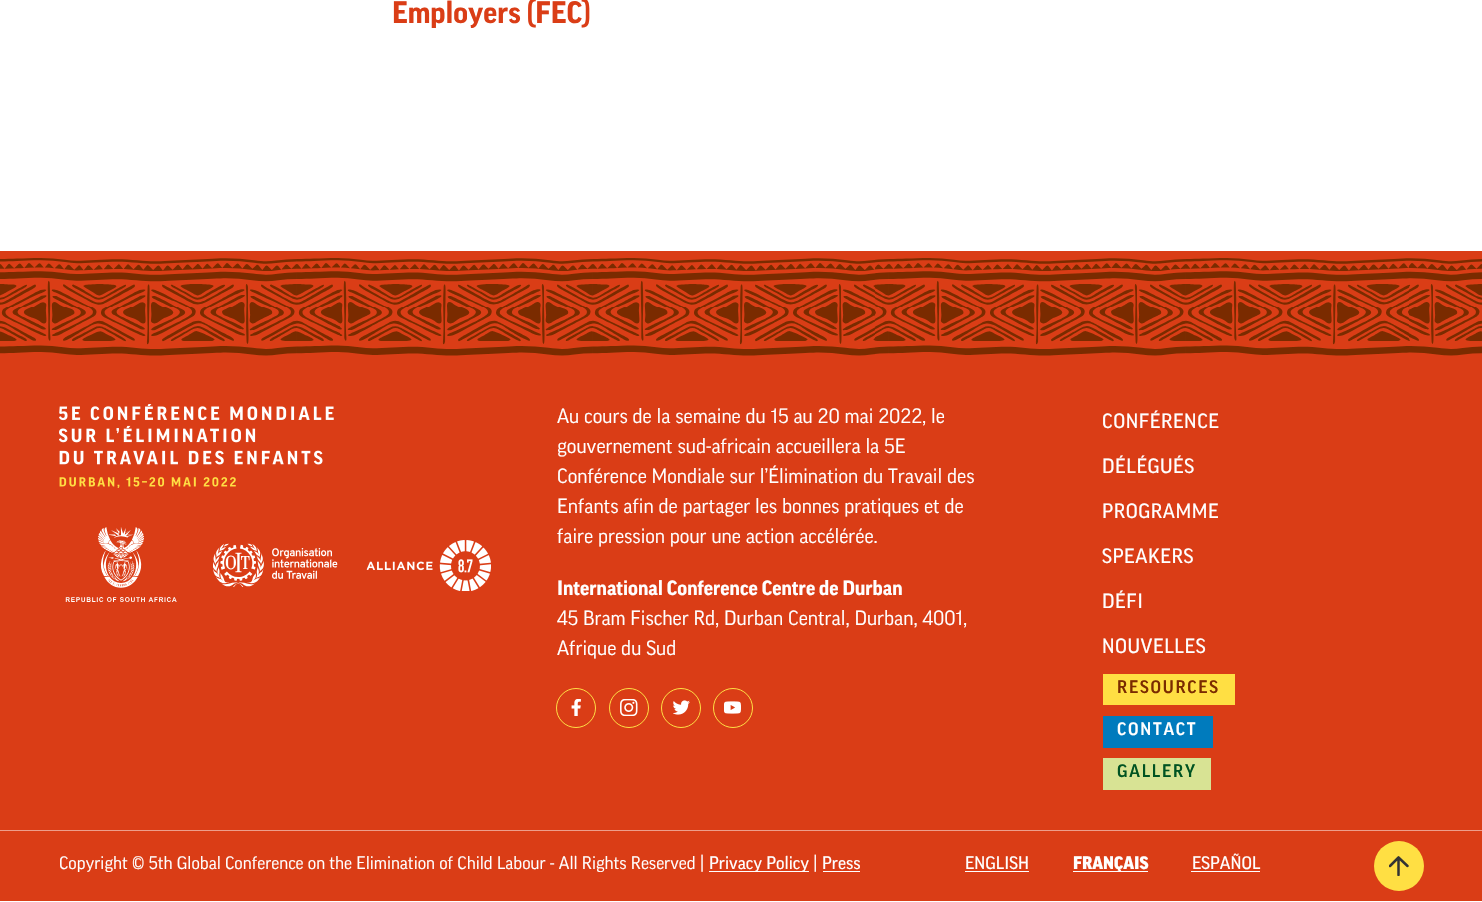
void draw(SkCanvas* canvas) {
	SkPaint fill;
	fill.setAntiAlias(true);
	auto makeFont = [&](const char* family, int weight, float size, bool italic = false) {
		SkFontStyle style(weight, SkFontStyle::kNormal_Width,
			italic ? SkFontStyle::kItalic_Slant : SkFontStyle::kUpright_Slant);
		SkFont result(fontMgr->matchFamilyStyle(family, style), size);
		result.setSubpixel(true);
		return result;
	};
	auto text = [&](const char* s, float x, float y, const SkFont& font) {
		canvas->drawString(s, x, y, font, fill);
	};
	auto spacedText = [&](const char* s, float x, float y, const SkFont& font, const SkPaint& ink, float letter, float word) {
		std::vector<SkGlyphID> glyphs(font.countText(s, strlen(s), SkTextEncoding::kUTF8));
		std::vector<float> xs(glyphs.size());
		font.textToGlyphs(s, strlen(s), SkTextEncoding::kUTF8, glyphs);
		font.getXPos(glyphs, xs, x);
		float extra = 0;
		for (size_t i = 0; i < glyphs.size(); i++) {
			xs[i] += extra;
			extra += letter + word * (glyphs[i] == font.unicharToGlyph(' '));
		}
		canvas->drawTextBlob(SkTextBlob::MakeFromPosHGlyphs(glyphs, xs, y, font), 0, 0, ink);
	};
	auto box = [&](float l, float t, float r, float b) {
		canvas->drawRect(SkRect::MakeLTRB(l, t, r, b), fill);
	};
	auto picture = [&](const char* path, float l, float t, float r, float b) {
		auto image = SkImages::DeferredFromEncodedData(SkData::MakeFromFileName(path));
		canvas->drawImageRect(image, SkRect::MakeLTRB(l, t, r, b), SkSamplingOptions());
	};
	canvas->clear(0xFFFFFFFF);
	fill.setColor(0xFFDA3D16);
	box(0, 251, 1482, 901);
	picture("image0.png", 0, 258, 1482, 356);
	fill.setColor(0xFFED9E8B);
	box(0, 830, 1482, 831);
	picture("image1.png", 59, 404, 334, 488);
	picture("image2.png", 65, 527, 177, 602);
	picture("image3.png", 213, 543, 338, 587);
	picture("image4.png", 366, 540, 491, 591);
	picture("image5.png", 571, 699, 581, 716);
	fill.setStyle(SkPaint::kStroke_Style);
	fill.setStrokeWidth(1);
	fill.setColor(0xFFFFDF43);
	canvas->drawCircle(576, 708, 19.5f, fill);
	picture("image6.png", 620, 699, 638, 716);
	canvas->drawCircle(629, 708, 19.5f, fill);
	picture("image7.png", 673, 700, 690, 715);
	canvas->drawCircle(681, 708, 19.5f, fill);
	picture("image8.png", 724, 701, 741, 714);
	canvas->drawCircle(733, 708, 19.5f, fill);
	fill.setStyle(SkPaint::kFill_Style);
	box(1103, 674, 1235, 705);
	fill.setColor(0xFF007BBD);
	box(1103, 716, 1213, 748);
	fill.setColor(0xFFD8E394);
	box(1103, 758, 1211, 790);
	fill.setColor(0xFFFFFFFF);
	box(709, 871, 809, 872);
	box(823, 871, 860, 872);
	box(965, 871, 1029, 872);
	box(1073, 871, 1148, 872);
	box(1191, 871, 1260, 872);
	fill.setColor(0xFFFFDF43);
	canvas->drawCircle(1399, 866, 25, fill);
	canvas->save();
	canvas->clipRect(SkRect::MakeLTRB(1389, 856, 1409, 876));
	fill.setStyle(SkPaint::kStroke_Style);
	fill.setStrokeWidth(2.5f);
	fill.setStrokeCap(SkPaint::kRound_Cap);
	fill.setStrokeJoin(SkPaint::kRound_Join);
	fill.setColor(0xFF333333);
	canvas->drawPath(SkPathBuilder().moveTo(1398.5f, 875).lineTo(1398.5f, 857.5f).moveTo(1390, 866).lineTo(1398.5f, 857.5f).lineTo(1407.5f, 866).detach(), fill);
	canvas->restore();
	auto font1 = makeFont("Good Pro", 700, 30);
	fill.setStyle(SkPaint::kFill_Style);
	fill.setColor(0xFFDA3D16);
	text("Employers (FEC)", 392, 23, font1);
	auto font2 = makeFont("Good Pro", 400, 20);
	fill.setColor(0xFFFFFFFF);
	text("Au cours de la semaine du 15 au 20 mai 2022, le", 557, 423, font2);
	text("gouvernement sud-africain accueillera la 5E", 557, 453, font2);
	text("Conférence Mondiale sur l’Élimination du Travail des", 557, 483, font2);
	text("Enfants afin de partager les bonnes pratiques et de", 557, 513, font2);
	text("faire pression pour une action accélérée.", 557, 543, font2);
	auto font3 = makeFont("Good Pro", 700, 20);
	text("International Conference Centre de Durban", 557, 595, font3);
	text("45 Bram Fischer Rd, Durban Central, Durban, 4001,", 557, 625, font2);
	text("Afrique du Sud", 557, 655, font2);
	auto font4 = makeFont("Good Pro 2", 500, 20);
	spacedText("CONFÉRENCE", 1102, 428, font4, fill, 0.5f, 0);
	spacedText("DÉLÉGUÉS", 1102, 473, font4, fill, 0.5f, 0);
	spacedText("PROGRAMME", 1102, 518, font4, fill, 0.5f, 0);
	spacedText("SPEAKERS", 1102, 563, font4, fill, 0.5f, 0);
	spacedText("DÉFI", 1102, 608, font4, fill, 0.5f, 0);
	spacedText("NOUVELLES", 1102, 653, font4, fill, 0.5f, 0);
	auto font5 = makeFont("Good Pro", 500, 17.5f);
	fill.setColor(0xFF7A2B00);
	spacedText("RESOURCES", 1117, 693, font5, fill, 1.75f, 0);
	fill.setColor(0xFFFFFFFF);
	spacedText("CONTACT", 1117, 735, font5, fill, 1.75f, 0);
	fill.setColor(0xFF005322);
	spacedText("GALLERY", 1117, 777, font5, fill, 1.75f, 0);
	auto font6 = makeFont("Good Pro", 400, 17.5f);
	fill.setColor(0xFFFFFFFF);
	text("Copyright © 5th Global Conference on the Elimination of Child Labour - All Rights Reserved |", 59, 869, font6);
	auto font7 = makeFont("Good Pro 2", 500, 17.5f);
	text("Privacy Policy", 709, 869, font7);
	text("|", 813, 869, font6);
	text("Press", 822, 869, font7);
	text("ENGLISH", 965, 869, font7);
	auto font8 = makeFont("Good Pro", 900, 17.5f);
	text("FRANÇAIS", 1073, 869, font8);
	text("ESPAÑOL", 1192, 869, font7);
}
